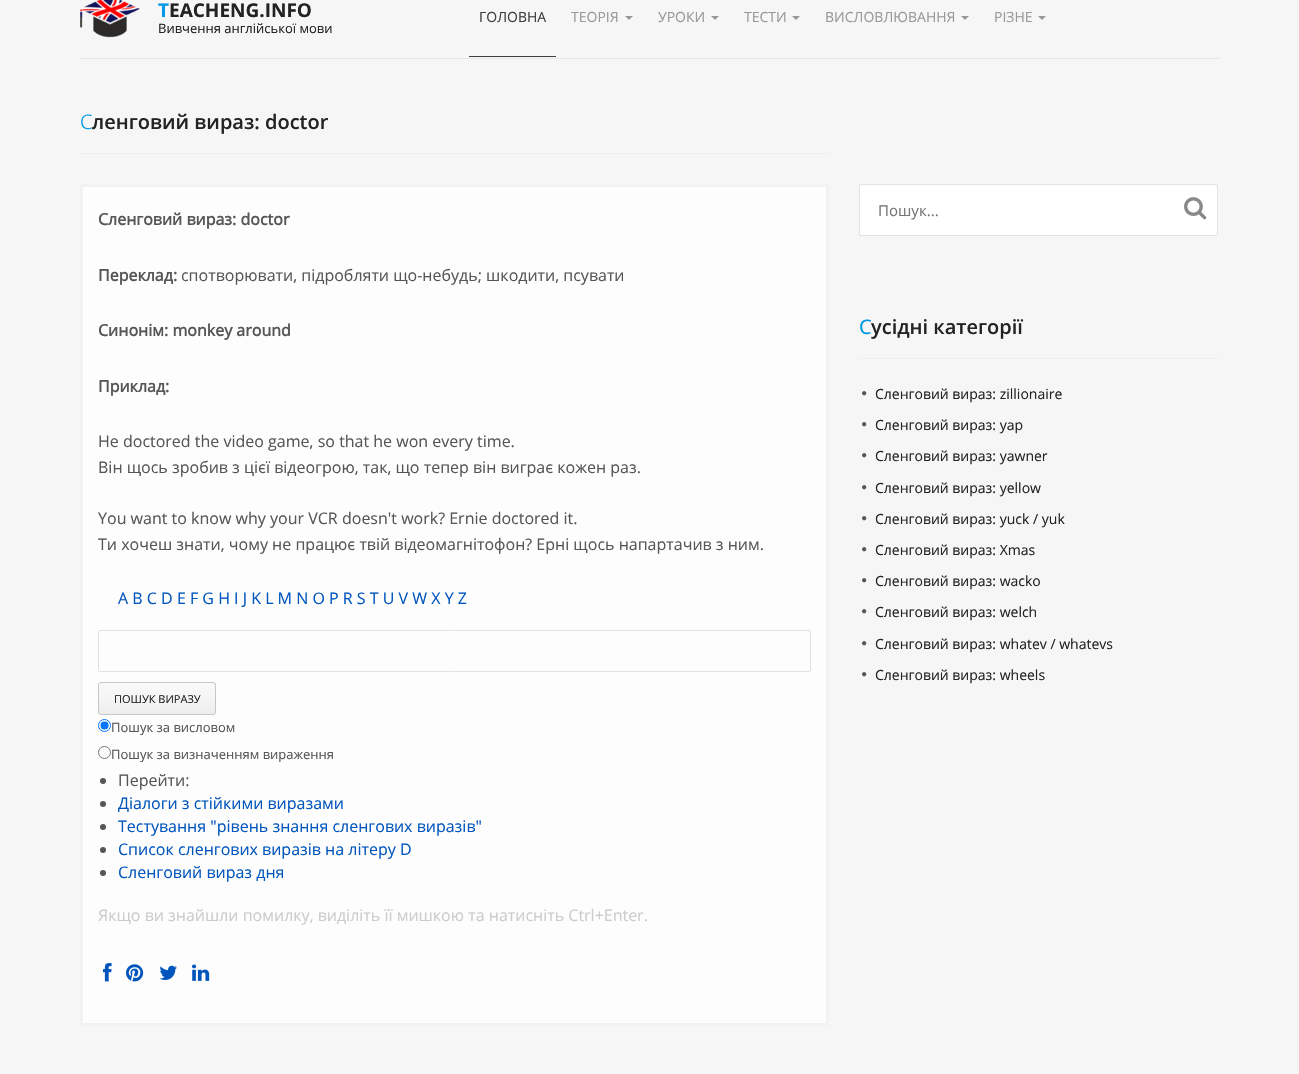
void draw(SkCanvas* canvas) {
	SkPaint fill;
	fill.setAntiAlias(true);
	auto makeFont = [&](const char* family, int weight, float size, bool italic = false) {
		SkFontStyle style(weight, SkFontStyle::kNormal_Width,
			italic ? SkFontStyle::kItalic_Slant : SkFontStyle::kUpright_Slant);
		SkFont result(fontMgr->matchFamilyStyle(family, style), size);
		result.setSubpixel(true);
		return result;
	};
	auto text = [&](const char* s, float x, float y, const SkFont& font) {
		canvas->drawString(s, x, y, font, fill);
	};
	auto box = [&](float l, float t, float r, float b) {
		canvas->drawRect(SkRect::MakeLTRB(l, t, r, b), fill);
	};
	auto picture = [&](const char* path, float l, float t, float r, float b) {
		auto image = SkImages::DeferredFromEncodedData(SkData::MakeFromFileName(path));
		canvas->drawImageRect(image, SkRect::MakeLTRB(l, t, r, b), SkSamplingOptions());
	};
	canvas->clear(0xFFF6F6F6);
	picture("image0.png", 80, 0, 140, 38);
	fill.setColor(0xFF3E3E3E);
	box(469, 56, 556, 57);
	fill.setColor(0xFF999999);
	canvas->drawPath(SkPathBuilder().moveTo(625, 16).lineTo(633, 16).lineTo(629, 20).close().detach(), fill);
	canvas->drawPath(SkPathBuilder().moveTo(711, 16).lineTo(719, 16).lineTo(715, 20).close().detach(), fill);
	canvas->drawPath(SkPathBuilder().moveTo(792, 16).lineTo(800, 16).lineTo(796, 20).close().detach(), fill);
	canvas->drawPath(SkPathBuilder().moveTo(961, 16).lineTo(969, 16).lineTo(965, 20).close().detach(), fill);
	canvas->drawPath(SkPathBuilder().moveTo(1038, 16).lineTo(1046, 16).lineTo(1042, 20).close().detach(), fill);
	fill.setColor(0xFFE7E7E7);
	box(80, 58, 1220, 59);
	fill.setColor(0xFFEEEEEE);
	box(80, 153, 829, 154);
	fill.setColor(0xFFFDFDFD);
	canvas->drawRect(SkRect::MakeLTRB(81.5f, 185.5f, 827.5f, 1024.5f), fill);
	fill.setStyle(SkPaint::kStroke_Style);
	fill.setStrokeWidth(3);
	fill.setColor(0xFFF2F2F2);
	canvas->drawRect(SkRect::MakeLTRB(81.5f, 185.5f, 827.5f, 1024.5f), fill);
	fill.setStrokeWidth(1);
	fill.setColor(0xFFE2E2E2);
	canvas->drawRoundRect(SkRect::MakeLTRB(98.5f, 630.5f, 810.5f, 671.5f), 1.5f, 1.5f, fill);
	canvas->save();
	canvas->clipPath(SkPathBuilder().moveTo(101, 682).lineTo(213, 682).cubicTo(214.5f, 682, 216, 683.5f, 216, 685).lineTo(216, 712).cubicTo(216, 713.5f, 214.5f, 715, 213, 715).lineTo(101, 715).cubicTo(99.5f, 715, 98, 713.5f, 98, 712).lineTo(98, 685).cubicTo(98, 683.5f, 99.5f, 682, 101, 682).close().detach(), true);
	fill.setStyle(SkPaint::kFill_Style);
	{
		const SkColor colors[] = {0xFFF9F9F9, 0xFFF5F5F5, 0xFFEDEDED};
		const float stops[] = {0, 0.5f, 1};
		const SkPoint ends[] = {{157, 683}, {157, 714}};
		fill.setShader(SkGradientShader::MakeLinear(ends, colors, stops, 3, SkTileMode::kClamp));
		fill.setAlpha(255);
	}
	box(98, 683, 216, 714);
	canvas->restore();
	fill.setStyle(SkPaint::kStroke_Style);
	fill.setShader(nullptr);
	fill.setColor(0xFFC6C6C6);
	canvas->drawRoundRect(SkRect::MakeLTRB(98.5f, 682.5f, 215.5f, 714.5f), 2.5f, 2.5f, fill);
	fill.setColor(0xFF0075FF);
	canvas->drawCircle(104.5f, 725.5f, 6, fill);
	fill.setStyle(SkPaint::kFill_Style);
	canvas->drawCircle(104.5f, 725.5f, 4, fill);
	fill.setStyle(SkPaint::kStroke_Style);
	fill.setColor(0xFF767676);
	canvas->drawCircle(104.5f, 752.5f, 6, fill);
	fill.setStyle(SkPaint::kFill_Style);
	fill.setColor(0xFF565656);
	canvas->drawCircle(103, 781, 3, fill);
	canvas->drawCircle(103, 804, 3, fill);
	canvas->drawCircle(103, 827, 3, fill);
	canvas->drawCircle(103, 850, 3, fill);
	canvas->drawCircle(103, 873, 3, fill);
	picture("image1.png", 103, 963, 112, 982);
	picture("image2.png", 126, 964, 144, 982);
	picture("image3.png", 159, 965, 177, 980);
	picture("image4.png", 192, 964, 210, 981);
	fill.setColor(0xFFFFFFFF);
	canvas->drawRoundRect(SkRect::MakeLTRB(859.5f, 184.5f, 1217.5f, 235.5f), 1.5f, 1.5f, fill);
	fill.setStyle(SkPaint::kStroke_Style);
	fill.setColor(0xFFE2E2E2);
	canvas->drawRoundRect(SkRect::MakeLTRB(859.5f, 184.5f, 1217.5f, 235.5f), 1.5f, 1.5f, fill);
	picture("image5.png", 1184, 197, 1207, 220);
	fill.setStyle(SkPaint::kFill_Style);
	fill.setColor(0xFFEEEEEE);
	box(859, 358, 1218, 359);
	picture("image6.png", 862, 391, 867, 396);
	picture("image6.png", 862, 422, 867, 427);
	picture("image6.png", 862, 453, 867, 458);
	picture("image6.png", 862, 485, 867, 490);
	picture("image6.png", 862, 516, 867, 521);
	picture("image6.png", 862, 547, 867, 552);
	picture("image6.png", 862, 578, 867, 583);
	picture("image6.png", 862, 609, 867, 614);
	picture("image6.png", 862, 641, 867, 646);
	picture("image6.png", 862, 672, 867, 677);
	auto font1 = makeFont("Noto Sans", 700, 19);
	fill.setColor(0xFF0098E4);
	text("T", 158, 17, font1);
	auto font2 = makeFont("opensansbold", 700, 19);
	fill.setColor(0xFF232323);
	text("EACHENG.INFO", 169, 17, font2);
	auto font3 = makeFont("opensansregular", 400, 13);
	text("Вивчення англійської мови", 158, 33, font3);
	auto font4 = makeFont("opensansregular", 400, 14);
	fill.setColor(0xFF3E3E3E);
	text("ГОЛОВНА", 479, 22, font4);
	fill.setColor(0xFF999999);
	text("ТЕОРІЯ", 571, 22, font4);
	text("УРОКИ", 658, 22, font4);
	text("ТЕСТИ", 744, 22, font4);
	text("ВИСЛОВЛЮВАННЯ", 825, 22, font4);
	text("РІЗНЕ", 994, 22, font4);
	auto font5 = makeFont("Noto Sans", 300, 20);
	fill.setColor(0xFF0098E4);
	text("С", 80, 129, font5);
	auto font6 = makeFont("Open Sans", 600, 20);
	fill.setColor(0xFF232323);
	text("ленговий вираз: doctor", 92, 129, font6);
	auto font7 = makeFont("opensansregular", 700, 16);
	fill.setColor(0xFF565656);
	text("Сленговий вираз: doctor", 98, 225, font7);
	text("Переклад:", 98, 281, font7);
	auto font8 = makeFont("opensansregular", 400, 16);
	text("спотворювати, підробляти що-небудь; шкодити, псувати", 181, 281, font8);
	text("Синонім: monkey around", 98, 336, font7);
	text("Приклад:", 98, 392, font7);
	text("He doctored the video game, so that he won every time.", 98, 447, font8);
	text("Він щось зробив з цієї відеогрою, так, що тепер він виграє кожен раз.", 98, 473, font8);
	text("You want to know why your VCR doesn't work? Ernie doctored it.", 98, 524, font8);
	text("Ти хочеш знати, чому не працює твій відеомагнітофон? Ерні щось напартачив з ним.", 98, 550, font8);
	fill.setColor(0xFF0055BD);
	text("A B C D E F G H I J K L M N O P R S T U V W X Y Z", 118, 604, font8);
	auto font9 = makeFont("opensansregular", 400, 11);
	fill.setColor(0xFF232323);
	text("ПОШУК ВИРАЗУ", 114, 703, font9);
	fill.setColor(0xFF565656);
	text("Пошук за висловом", 111, 732, font3);
	text("Пошук за визначенням вираження", 111, 759, font3);
	text("Перейти:", 118, 786, font8);
	fill.setColor(0xFF0055BD);
	text("Діалоги з стійкими виразами", 118, 809, font8);
	text("Тестування \"рівень знання сленгових виразів\"", 118, 832, font8);
	text("Список сленгових виразів на літеру D", 118, 855, font8);
	text("Сленговий вираз дня", 118, 878, font8);
	fill.setColor(0xFFCCCCCC);
	text("Якщо ви знайшли помилку, видiлiть її мишкою та натисніть Ctrl+Enter.", 98, 921, font8);
	auto font10 = makeFont("opensansregular", 400, 15);
	fill.setColor(0xFF757575);
	text("Пошук...", 878, 216, font10);
	auto font11 = makeFont("Noto Sans", 400, 20);
	fill.setColor(0xFF0098E4);
	text("C", 859, 334, font11);
	fill.setColor(0xFF232323);
	text("усідні категорії", 871, 334, font6);
	text("Сленговий вираз: zillionaire", 875, 399, font4);
	text("Сленговий вираз: yap", 875, 430, font4);
	text("Сленговий вираз: yawner", 875, 461, font4);
	text("Сленговий вираз: yellow", 875, 493, font4);
	text("Сленговий вираз: yuck / yuk", 875, 524, font4);
	text("Сленговий вираз: Xmas", 875, 555, font4);
	text("Сленговий вираз: wacko", 875, 586, font4);
	text("Сленговий вираз: welch", 875, 617, font4);
	text("Сленговий вираз: whatev / whatevs", 875, 649, font4);
	text("Сленговий вираз: wheels", 875, 680, font4);
}
